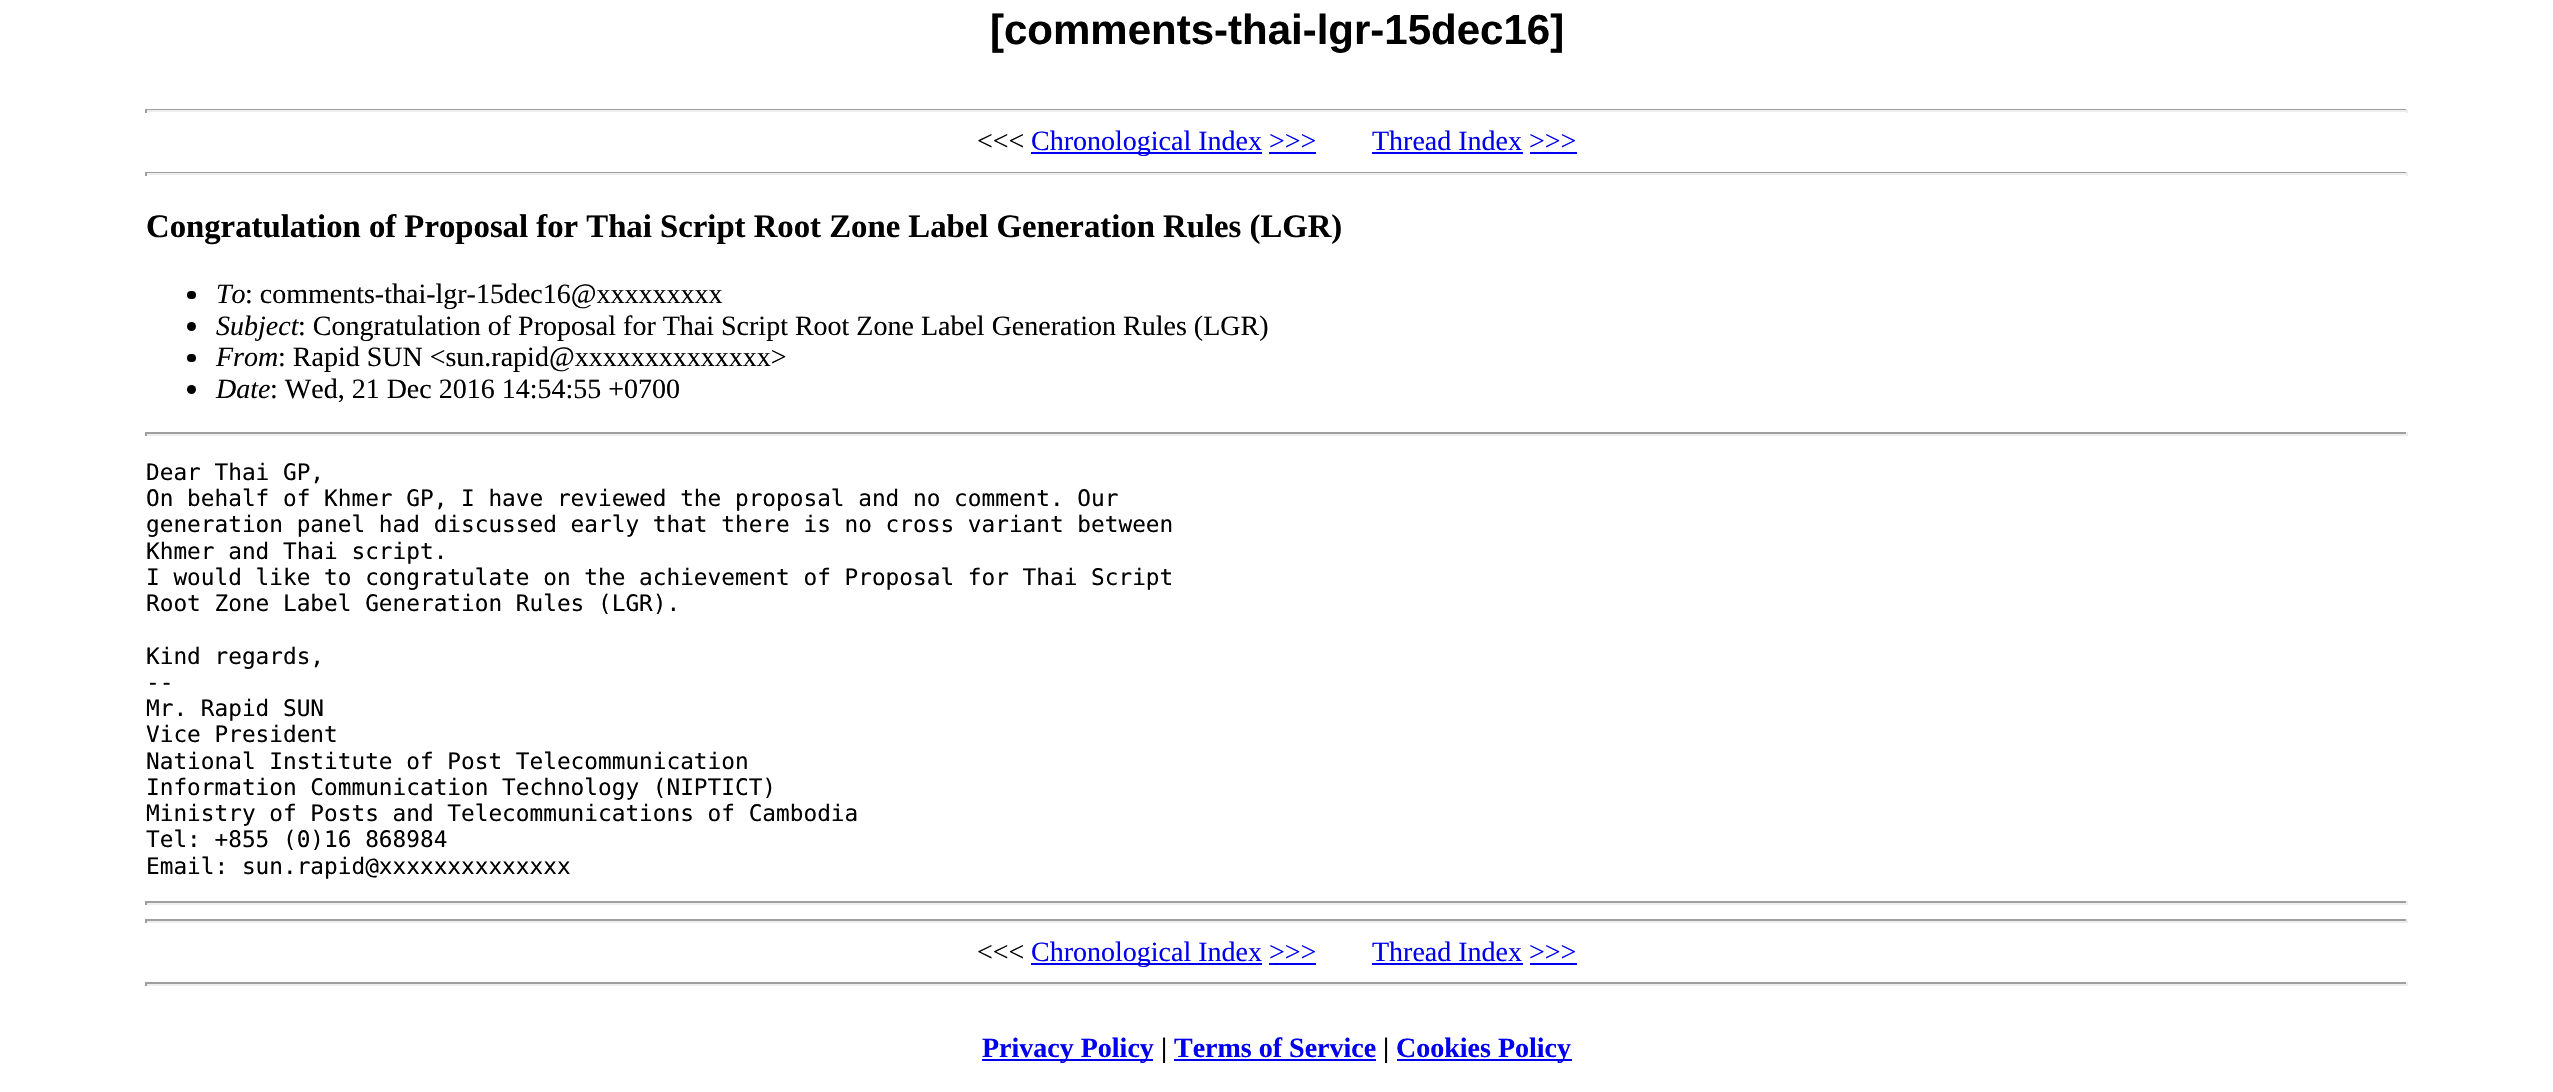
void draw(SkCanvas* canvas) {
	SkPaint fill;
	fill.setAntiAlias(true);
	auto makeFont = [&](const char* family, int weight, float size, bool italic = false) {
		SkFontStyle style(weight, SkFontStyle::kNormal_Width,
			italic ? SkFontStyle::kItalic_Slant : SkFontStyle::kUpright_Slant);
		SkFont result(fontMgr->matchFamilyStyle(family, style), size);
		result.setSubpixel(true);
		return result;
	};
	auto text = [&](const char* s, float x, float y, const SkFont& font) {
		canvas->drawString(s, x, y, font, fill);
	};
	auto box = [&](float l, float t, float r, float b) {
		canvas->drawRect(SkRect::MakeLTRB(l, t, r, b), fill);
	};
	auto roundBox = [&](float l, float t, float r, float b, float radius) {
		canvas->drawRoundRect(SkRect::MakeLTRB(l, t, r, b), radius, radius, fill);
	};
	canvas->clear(0xFFFFFFFF);
	fill.setColor(0xFF9F9F9F);
	box(145, 109, 2408, 110);
	fill.setColor(0xFFEEEEEE);
	box(2406, 109, 2408, 113);
	box(145, 110, 2408, 112);
	fill.setColor(0xFF9F9F9F);
	box(145, 109, 147, 113);
	fill.setColor(0xFF0000EE);
	box(1031, 152, 1262, 154);
	box(1372, 152, 1523, 154);
	box(1269, 152, 1316, 154);
	box(1530, 152, 1577, 154);
	fill.setColor(0xFF9F9F9F);
	box(145, 172, 2408, 173);
	fill.setColor(0xFFEEEEEE);
	box(2406, 172, 2408, 176);
	box(145, 173, 2408, 175);
	fill.setColor(0xFF9F9F9F);
	box(145, 172, 147, 176);
	fill.setColor(0xFF000000);
	roundBox(187, 291, 196, 299, 4);
	canvas->drawCircle(191.5f, 326.5f, 4.5f, fill);
	roundBox(187, 354, 196, 362, 4);
	canvas->drawCircle(191.5f, 389.5f, 4.5f, fill);
	fill.setColor(0xFF9F9F9F);
	box(145, 432, 2408, 434);
	fill.setColor(0xFFEEEEEE);
	box(2406, 432, 2408, 436);
	box(145, 434, 2408, 436);
	fill.setColor(0xFF9F9F9F);
	box(145, 432, 147, 436);
	box(145, 901, 2408, 903);
	fill.setColor(0xFFEEEEEE);
	box(2406, 901, 2408, 905);
	box(145, 903, 2408, 905);
	fill.setColor(0xFF9F9F9F);
	box(145, 901, 147, 905);
	box(145, 919, 2408, 921);
	fill.setColor(0xFFEEEEEE);
	box(2406, 919, 2408, 923);
	box(145, 921, 2408, 923);
	fill.setColor(0xFF9F9F9F);
	box(145, 919, 147, 923);
	fill.setColor(0xFF0000EE);
	box(1031, 963, 1262, 965);
	box(1372, 963, 1523, 965);
	box(1269, 963, 1316, 965);
	box(1530, 963, 1577, 965);
	fill.setColor(0xFF9F9F9F);
	box(145, 982, 2408, 984);
	fill.setColor(0xFFEEEEEE);
	box(2406, 982, 2408, 986);
	box(145, 984, 2408, 986);
	fill.setColor(0xFF9F9F9F);
	box(145, 982, 147, 986);
	fill.setColor(0xFF0000EE);
	box(982, 1059, 1153, 1061);
	box(1174, 1059, 1376, 1061);
	box(1397, 1059, 1572, 1061);
	auto font1 = makeFont("Liberation Sans", 700, 42);
	fill.setColor(0xFF000000);
	text("[comments-thai-lgr-15dec16]", 990, 44, font1);
	auto font2 = makeFont("Liberation Serif", 400, 28);
	text("<<<", 977, 150, font2);
	fill.setColor(0xFF0000EE);
	text("Chronological Index >>>", 1031, 150, font2);
	text("Thread Index >>>", 1372, 150, font2);
	auto font3 = makeFont("Liberation Serif", 700, 32.75f);
	fill.setColor(0xFF000000);
	text("Congratulation of Proposal for Thai Script Root Zone Label Generation Rules (LGR)", 146, 237, font3);
	auto font4 = makeFont("Liberation Serif", 400, 28, true);
	text("To", 216, 303, font4);
	text(": comments-thai-lgr-15dec16@xxxxxxxxx", 245, 303, font2);
	text("Subject", 216, 335, font4);
	text(": Congratulation of Proposal for Thai Script Root Zone Label Generation Rules (LGR)", 298, 335, font2);
	text("From", 216, 366, font4);
	text(": Rapid SUN <sun.rapid@xxxxxxxxxxxxxx>", 278, 366, font2);
	text("Date", 216, 398, font4);
	text(": Wed, 21 Dec 2016 14:54:55 +0700", 270, 398, font2);
	auto font5 = makeFont("DejaVu Sans Mono", 400, 22.75f);
	text("Dear Thai GP,", 146, 480, font5);
	text("On behalf of Khmer GP, I have reviewed the proposal and no comment. Our", 146, 506, font5);
	text("generation panel had discussed early that there is no cross variant between", 146, 532, font5);
	text("Khmer and Thai script.", 146, 559, font5);
	text("I would like to congratulate on the achievement of Proposal for Thai Script", 146, 585, font5);
	text("Root Zone Label Generation Rules (LGR).", 146, 611, font5);
	text("Kind regards,", 146, 664, font5);
	text("--", 146, 690, font5);
	text("Mr. Rapid SUN", 146, 716, font5);
	text("Vice President", 146, 742, font5);
	text("National Institute of Post Telecommunication", 146, 769, font5);
	text("Information Communication Technology (NIPTICT)", 146, 795, font5);
	text("Ministry of Posts and Telecommunications of Cambodia", 146, 821, font5);
	text("Tel: +855 (0)16 868984", 146, 847, font5);
	text("Email: sun.rapid@xxxxxxxxxxxxxx", 146, 874, font5);
	text("<<<", 977, 961, font2);
	fill.setColor(0xFF0000EE);
	text("Chronological Index >>>", 1031, 961, font2);
	text("Thread Index >>>", 1372, 961, font2);
	auto font6 = makeFont("Liberation Serif", 700, 28);
	text("Privacy Policy", 982, 1057, font6);
	fill.setColor(0xFF000000);
	text("|", 1161, 1057, font6);
	fill.setColor(0xFF0000EE);
	text("Terms of Service", 1174, 1057, font6);
	fill.setColor(0xFF000000);
	text("|", 1383, 1057, font6);
	fill.setColor(0xFF0000EE);
	text("Cookies Policy", 1396, 1057, font6);
}
